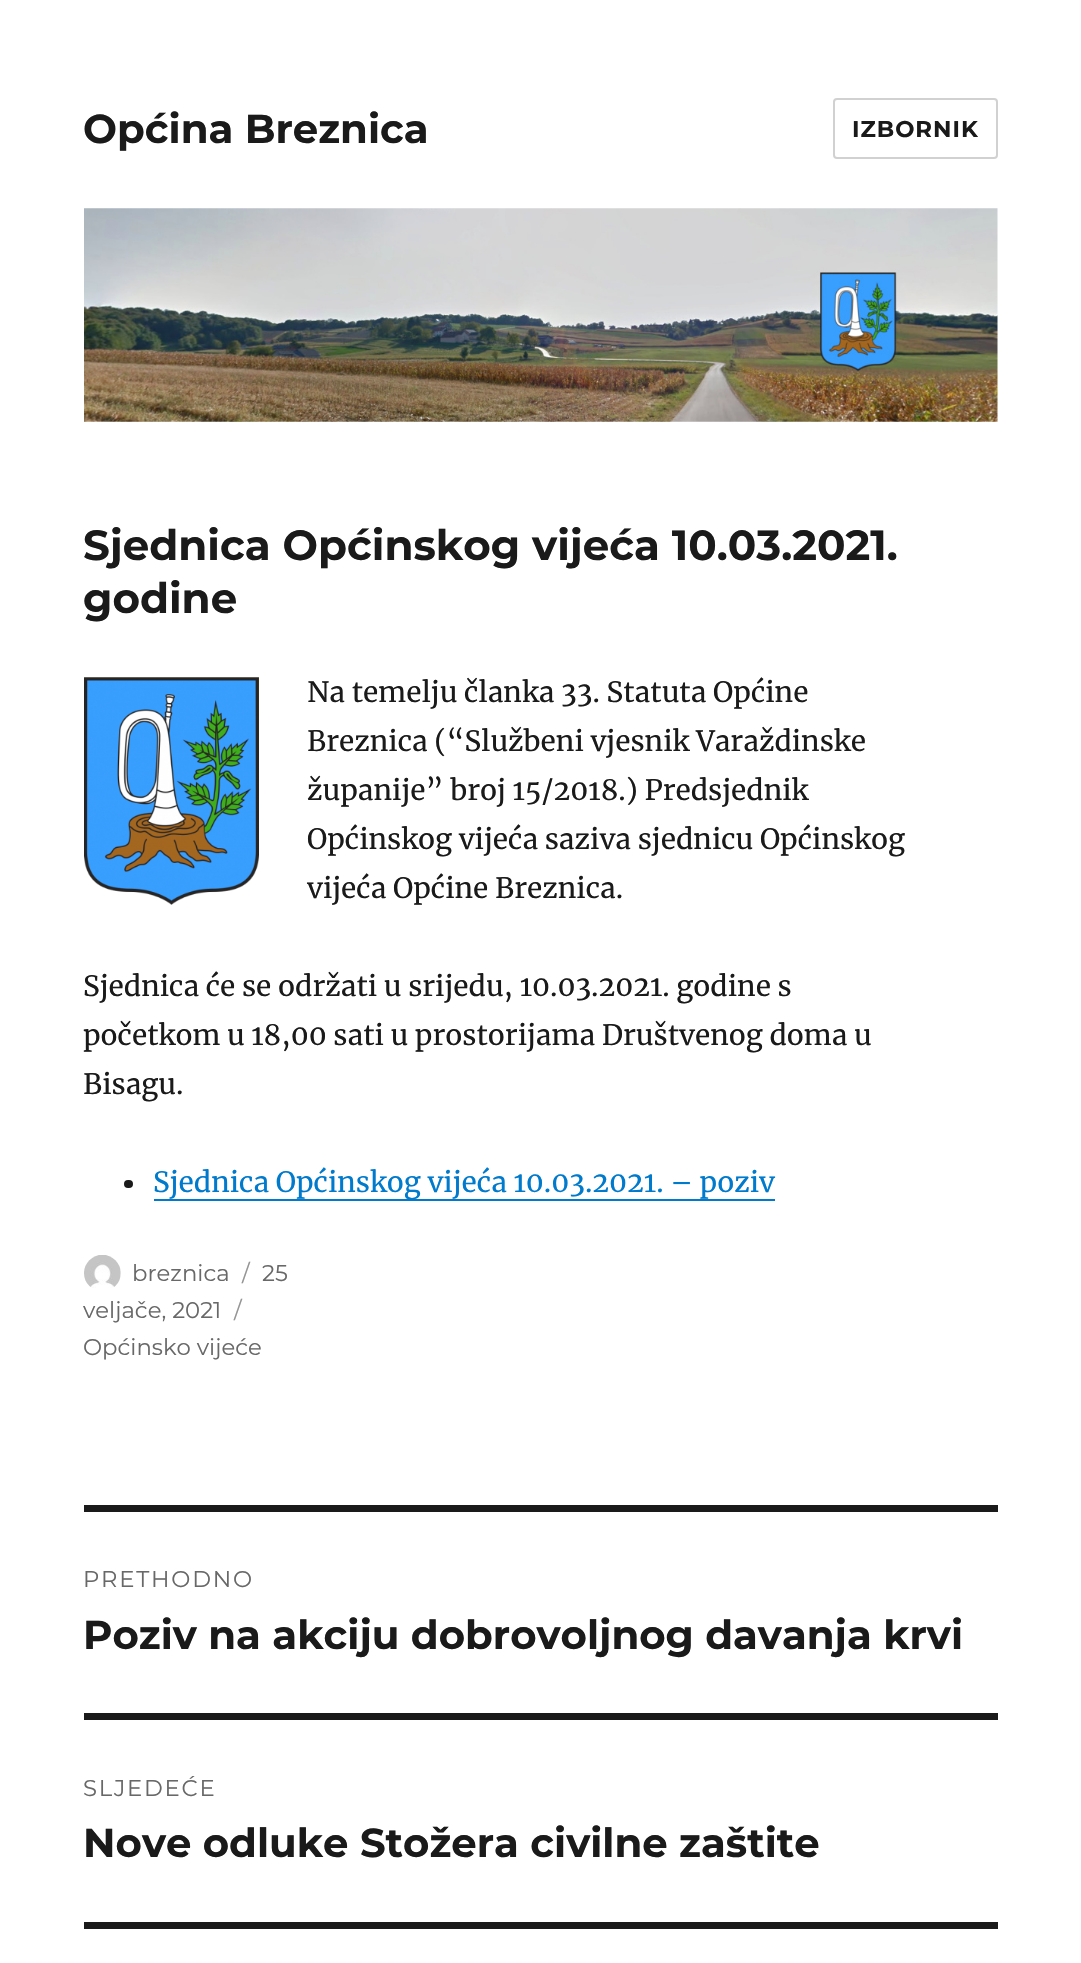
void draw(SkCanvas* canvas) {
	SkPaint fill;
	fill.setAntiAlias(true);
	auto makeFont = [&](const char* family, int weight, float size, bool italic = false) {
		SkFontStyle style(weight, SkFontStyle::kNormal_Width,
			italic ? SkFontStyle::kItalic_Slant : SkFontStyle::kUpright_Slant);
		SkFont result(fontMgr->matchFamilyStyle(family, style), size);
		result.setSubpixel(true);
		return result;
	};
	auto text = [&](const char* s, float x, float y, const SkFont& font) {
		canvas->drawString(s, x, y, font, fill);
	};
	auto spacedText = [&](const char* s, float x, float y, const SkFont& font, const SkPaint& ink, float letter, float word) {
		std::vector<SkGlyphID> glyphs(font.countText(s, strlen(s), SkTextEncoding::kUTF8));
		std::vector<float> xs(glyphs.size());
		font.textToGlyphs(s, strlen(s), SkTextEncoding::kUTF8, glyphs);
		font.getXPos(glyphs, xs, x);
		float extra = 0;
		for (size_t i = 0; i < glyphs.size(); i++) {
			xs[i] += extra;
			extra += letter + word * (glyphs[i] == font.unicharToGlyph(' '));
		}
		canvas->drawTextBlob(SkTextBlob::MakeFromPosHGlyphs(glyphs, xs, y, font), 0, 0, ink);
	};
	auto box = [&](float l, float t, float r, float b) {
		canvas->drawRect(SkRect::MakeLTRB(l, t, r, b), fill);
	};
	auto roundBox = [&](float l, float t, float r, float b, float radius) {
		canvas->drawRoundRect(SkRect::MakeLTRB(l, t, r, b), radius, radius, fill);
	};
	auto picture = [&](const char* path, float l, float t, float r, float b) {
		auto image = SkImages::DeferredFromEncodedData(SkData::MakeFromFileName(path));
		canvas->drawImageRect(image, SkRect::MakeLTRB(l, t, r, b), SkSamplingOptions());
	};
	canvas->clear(0xFFFFFFFF);
	fill.setStyle(SkPaint::kStroke_Style);
	fill.setStrokeWidth(2);
	fill.setColor(0xFFD1D1D1);
	canvas->drawRoundRect(SkRect::MakeLTRB(834, 99, 997, 158), 3, 3, fill);
	picture("image0.png", 84, 208, 998, 422);
	picture("image1.png", 84, 677, 259, 905);
	fill.setStyle(SkPaint::kFill_Style);
	fill.setColor(0xFF1A1A1A);
	roundBox(124, 1180, 133, 1188, 4);
	fill.setColor(0xFF007ACC);
	box(154, 1199, 775, 1201);
	picture("image2.png", 84, 1255, 121, 1288);
	fill.setColor(0xFF1A1A1A);
	box(84, 1505, 998, 1512);
	box(84, 1922, 998, 1929);
	box(84, 1713, 998, 1720);
	auto font1 = makeFont("Montserrat", 700, 40.25f);
	text("Općina Breznica", 83, 143, font1);
	auto font2 = makeFont("Montserrat", 700, 22.75f);
	spacedText("IZBORNIK", 852, 137, font2, fill, 1, 0);
	auto font3 = makeFont("Montserrat", 700, 42);
	text("Sjednica Općinskog vijeća 10.03.2021.", 83, 560, font3);
	text("godine", 83, 613, font3);
	auto font4 = makeFont("Merriweather", 400, 28);
	text("Na temelju članka 33. Statuta Općine", 307, 702, font4);
	text("Breznica (“Službeni vjesnik Varaždinske", 307, 751, font4);
	text("županije” broj 15/2018.) Predsjednik", 307, 800, font4);
	text("Općinskog vijeća saziva sjednicu Općinskog", 307, 849, font4);
	text("vijeća Općine Breznica.", 307, 898, font4);
	text("Sjednica će se održati u srijedu, 10.03.2021. godine s", 83, 996, font4);
	text("početkom u 18,00 sati u prostorijama Društvenog doma u", 83, 1045, font4);
	text("Bisagu.", 83, 1094, font4);
	fill.setColor(0xFF007ACC);
	text("Sjednica Općinskog vijeća 10.03.2021. – poziv", 153, 1192, font4);
	auto font5 = makeFont("Montserrat", 400, 22.75f);
	fill.setColor(0xFF686868);
	text("breznica", 132, 1281, font5);
	fill.setColor(0xFF959595);
	text("/", 242, 1281, font5);
	fill.setColor(0xFF686868);
	text("25", 262, 1281, font5);
	text("veljače, 2021", 83, 1318, font5);
	fill.setColor(0xFF959595);
	text("/", 234, 1318, font5);
	fill.setColor(0xFF686868);
	text("Općinsko vijeće", 83, 1355, font5);
	spacedText("PRETHODNO", 83, 1587, font5, fill, 1.75f, 0);
	fill.setColor(0xFF1A1A1A);
	text("Poziv na akciju dobrovoljnog davanja krvi", 83, 1649, font1);
	fill.setColor(0xFF686868);
	spacedText("SLJEDEĆE", 83, 1796, font5, fill, 1.75f, 0);
	fill.setColor(0xFF1A1A1A);
	text("Nove odluke Stožera civilne zaštite", 83, 1857, font1);
}
